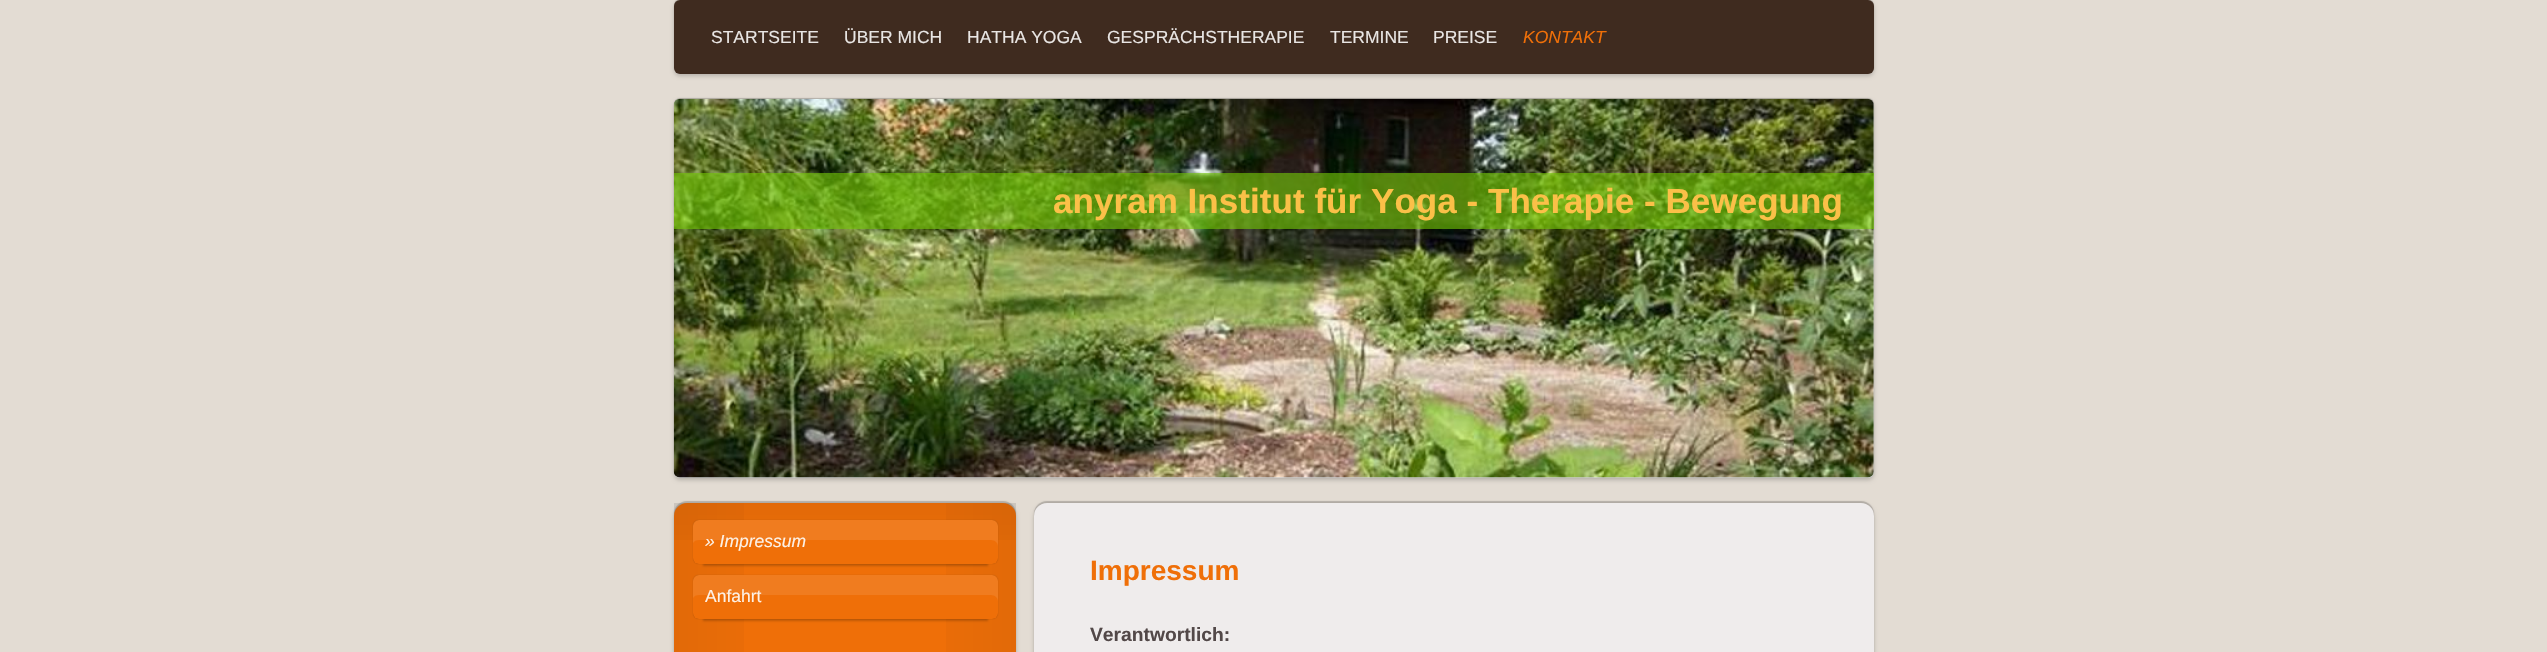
void draw(SkCanvas* canvas) {
	SkPaint fill;
	fill.setAntiAlias(true);
	auto makeFont = [&](const char* family, int weight, float size, bool italic = false) {
		SkFontStyle style(weight, SkFontStyle::kNormal_Width,
			italic ? SkFontStyle::kItalic_Slant : SkFontStyle::kUpright_Slant);
		SkFont result(fontMgr->matchFamilyStyle(family, style), size);
		result.setSubpixel(true);
		return result;
	};
	auto text = [&](const char* s, float x, float y, const SkFont& font) {
		canvas->drawString(s, x, y, font, fill);
	};
	auto spacedText = [&](const char* s, float x, float y, const SkFont& font, const SkPaint& ink, float letter, float word) {
		std::vector<SkGlyphID> glyphs(font.countText(s, strlen(s), SkTextEncoding::kUTF8));
		std::vector<float> xs(glyphs.size());
		font.textToGlyphs(s, strlen(s), SkTextEncoding::kUTF8, glyphs);
		font.getXPos(glyphs, xs, x);
		float extra = 0;
		for (size_t i = 0; i < glyphs.size(); i++) {
			xs[i] += extra;
			extra += letter + word * (glyphs[i] == font.unicharToGlyph(' '));
		}
		canvas->drawTextBlob(SkTextBlob::MakeFromPosHGlyphs(glyphs, xs, y, font), 0, 0, ink);
	};
	auto box = [&](float l, float t, float r, float b) {
		canvas->drawRect(SkRect::MakeLTRB(l, t, r, b), fill);
	};
	auto roundBox = [&](float l, float t, float r, float b, float radius) {
		canvas->drawRoundRect(SkRect::MakeLTRB(l, t, r, b), radius, radius, fill);
	};
	auto picture = [&](const char* path, float l, float t, float r, float b) {
		auto image = SkImages::DeferredFromEncodedData(SkData::MakeFromFileName(path));
		canvas->drawImageRect(image, SkRect::MakeLTRB(l, t, r, b), SkSamplingOptions());
	};
	canvas->clear(0xFFE3DCD3);
	fill.setColor(0x33000000);
	fill.setMaskFilter(SkMaskFilter::MakeBlur(kNormal_SkBlurStyle, 2));
	canvas->drawRoundRect(SkRect::MakeLTRB(674, 3, 1874, 76), 6, 6, fill);
	fill.setMaskFilter(nullptr);
	fill.setMaskFilter(SkMaskFilter::MakeBlur(kNormal_SkBlurStyle, 0.5f));
	canvas->drawRoundRect(SkRect::MakeLTRB(674, -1, 1874, 73), 6, 6, fill);
	fill.setMaskFilter(nullptr);
	fill.setColor(0xFF3F2B1F);
	roundBox(674, 0, 1874, 74, 6);
	fill.setColor(0x33000000);
	fill.setMaskFilter(SkMaskFilter::MakeBlur(kNormal_SkBlurStyle, 2));
	canvas->drawRoundRect(SkRect::MakeLTRB(674, 101, 1874, 480), 6, 6, fill);
	fill.setMaskFilter(nullptr);
	fill.setMaskFilter(SkMaskFilter::MakeBlur(kNormal_SkBlurStyle, 0.5f));
	canvas->drawRoundRect(SkRect::MakeLTRB(674, 98, 1874, 476), 6, 6, fill);
	fill.setMaskFilter(nullptr);
	fill.setColor(0xFFCCCCCC);
	roundBox(674, 99, 1874, 478, 6);
	picture("image0.png", 673, 98, 1874, 478);
	fill.setColor(0x9E73C606);
	box(674, 173, 1874, 229);
	fill.setColor(0x33000000);
	fill.setMaskFilter(SkMaskFilter::MakeBlur(kNormal_SkBlurStyle, 2));
	canvas->drawRoundRect(SkRect::MakeLTRB(674, 505, 1016, 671), 13, 13, fill);
	fill.setMaskFilter(nullptr);
	fill.setMaskFilter(SkMaskFilter::MakeBlur(kNormal_SkBlurStyle, 0.5f));
	canvas->drawRoundRect(SkRect::MakeLTRB(674, 501, 1016, 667), 13, 13, fill);
	fill.setMaskFilter(nullptr);
	fill.setColor(0xFFEF6F08);
	roundBox(674, 503, 1016, 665, 13);
	{
		const SkColor colors[] = {0x0D000000, 0x00000000};
		const float stops[] = {0, 0.36f};
		const SkPoint ends[] = {{674, 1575}, {1016, 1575}};
		fill.setShader(SkGradientShader::MakeLinear(ends, colors, stops, 2, SkTileMode::kClamp));
		fill.setAlpha(255);
	}
	box(674, 503, 744, 652);
	{
		const SkColor colors[] = {0x0D000000, 0x00000000};
		const float stops[] = {0, 0.36f};
		const SkPoint ends[] = {{1016, 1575}, {674, 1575}};
		fill.setShader(SkGradientShader::MakeLinear(ends, colors, stops, 2, SkTileMode::kClamp));
		fill.setAlpha(255);
	}
	box(946, 503, 1016, 652);
	{
		const SkColor colors[] = {0x0D000000, 0x00000000};
		const float stops[] = {0, 0.03f};
		const SkPoint ends[] = {{845, 503}, {845, 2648}};
		fill.setShader(SkGradientShader::MakeLinear(ends, colors, stops, 2, SkTileMode::kClamp));
		fill.setAlpha(255);
	}
	box(674, 503, 1016, 540);
	fill.setShader(nullptr);
	fill.setColor(0x4D000000);
	fill.setMaskFilter(SkMaskFilter::MakeBlur(kNormal_SkBlurStyle, 0.5f));
	canvas->drawRoundRect(SkRect::MakeLTRB(693, 520, 998, 564), 6, 6, fill);
	fill.setMaskFilter(nullptr);
	fill.setColor(0x33000000);
	fill.setMaskFilter(SkMaskFilter::MakeBlur(kNormal_SkBlurStyle, 1));
	canvas->drawRect(SkRect::MakeLTRB(703, 543, 988, 566), fill);
	fill.setMaskFilter(nullptr);
	fill.setColor(0xFFEF6F08);
	roundBox(693, 520, 998, 564, 6);
	fill.setColor(0x17FFFFFF);
	canvas->drawPath(SkPathBuilder().moveTo(699, 540).lineTo(991, 540).cubicTo(995, 540, 998, 543, 998, 546).lineTo(998, 526).cubicTo(998, 523, 995, 520, 992, 520).lineTo(699, 520).cubicTo(696, 520, 693, 523, 693, 526).lineTo(693, 543).cubicTo(694, 541, 696, 540, 699, 540).close().detach(), fill);
	fill.setColor(0x4D000000);
	fill.setMaskFilter(SkMaskFilter::MakeBlur(kNormal_SkBlurStyle, 0.5f));
	canvas->drawRoundRect(SkRect::MakeLTRB(693, 575, 998, 619), 6, 6, fill);
	fill.setMaskFilter(nullptr);
	fill.setColor(0x33000000);
	fill.setMaskFilter(SkMaskFilter::MakeBlur(kNormal_SkBlurStyle, 1));
	canvas->drawRect(SkRect::MakeLTRB(703, 598, 988, 621), fill);
	fill.setMaskFilter(nullptr);
	fill.setColor(0xFFEF6F08);
	roundBox(693, 575, 998, 619, 6);
	fill.setColor(0x17FFFFFF);
	canvas->drawPath(SkPathBuilder().moveTo(699, 595).lineTo(991, 595).cubicTo(995, 595, 998, 598, 998, 601).lineTo(998, 581).cubicTo(998, 578, 995, 575, 992, 575).lineTo(699, 575).cubicTo(696, 575, 693, 578, 693, 581).lineTo(693, 598).cubicTo(694, 596, 696, 595, 699, 595).close().detach(), fill);
	fill.setColor(0x33000000);
	fill.setMaskFilter(SkMaskFilter::MakeBlur(kNormal_SkBlurStyle, 2));
	canvas->drawRoundRect(SkRect::MakeLTRB(1034, 505, 1874, 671), 13, 13, fill);
	fill.setMaskFilter(nullptr);
	fill.setMaskFilter(SkMaskFilter::MakeBlur(kNormal_SkBlurStyle, 0.5f));
	canvas->drawRoundRect(SkRect::MakeLTRB(1034, 501, 1874, 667), 13, 13, fill);
	fill.setMaskFilter(nullptr);
	fill.setColor(0xFFEFECEC);
	roundBox(1034, 503, 1874, 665, 13);
	auto font1 = makeFont("Liberation Sans", 400, 17.5f);
	fill.setColor(0xFFE9E6E4);
	text("STARTSEITE", 711, 43, font1);
	text("ÜBER MICH", 844, 43, font1);
	text("HATHA YOGA", 967, 43, font1);
	text("GESPRÄCHSTHERAPIE", 1107, 43, font1);
	text("TERMINE", 1330, 43, font1);
	text("PREISE", 1433, 43, font1);
	auto font2 = makeFont("Liberation Sans", 400, 17.5f, true);
	fill.setColor(0xFFEF6F08);
	text("KONTAKT", 1523, 43, font2);
	auto font3 = makeFont("Liberation Sans", 700, 35);
	fill.setColor(0xFFFBC048);
	spacedText("anyram Institut für Yoga - Therapie - Bewegung", 1053, 213, font3, fill, 0.05f, 0);
	fill.setColor(0xFFFDF1E6);
	text("» Impressum", 705, 547, font2);
	text("Anfahrt", 705, 602, font1);
	auto font4 = makeFont("Liberation Sans", 700, 28);
	fill.setColor(0xFFEF6F08);
	text("Impressum", 1090, 580, font4);
	auto font5 = makeFont("Liberation Sans", 700, 19.25f);
	fill.setColor(0xFF524848);
	text("Verantwortlich:", 1090, 641, font5);
}
